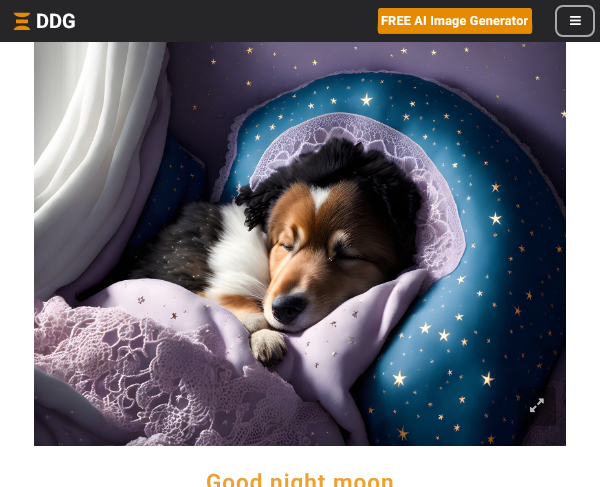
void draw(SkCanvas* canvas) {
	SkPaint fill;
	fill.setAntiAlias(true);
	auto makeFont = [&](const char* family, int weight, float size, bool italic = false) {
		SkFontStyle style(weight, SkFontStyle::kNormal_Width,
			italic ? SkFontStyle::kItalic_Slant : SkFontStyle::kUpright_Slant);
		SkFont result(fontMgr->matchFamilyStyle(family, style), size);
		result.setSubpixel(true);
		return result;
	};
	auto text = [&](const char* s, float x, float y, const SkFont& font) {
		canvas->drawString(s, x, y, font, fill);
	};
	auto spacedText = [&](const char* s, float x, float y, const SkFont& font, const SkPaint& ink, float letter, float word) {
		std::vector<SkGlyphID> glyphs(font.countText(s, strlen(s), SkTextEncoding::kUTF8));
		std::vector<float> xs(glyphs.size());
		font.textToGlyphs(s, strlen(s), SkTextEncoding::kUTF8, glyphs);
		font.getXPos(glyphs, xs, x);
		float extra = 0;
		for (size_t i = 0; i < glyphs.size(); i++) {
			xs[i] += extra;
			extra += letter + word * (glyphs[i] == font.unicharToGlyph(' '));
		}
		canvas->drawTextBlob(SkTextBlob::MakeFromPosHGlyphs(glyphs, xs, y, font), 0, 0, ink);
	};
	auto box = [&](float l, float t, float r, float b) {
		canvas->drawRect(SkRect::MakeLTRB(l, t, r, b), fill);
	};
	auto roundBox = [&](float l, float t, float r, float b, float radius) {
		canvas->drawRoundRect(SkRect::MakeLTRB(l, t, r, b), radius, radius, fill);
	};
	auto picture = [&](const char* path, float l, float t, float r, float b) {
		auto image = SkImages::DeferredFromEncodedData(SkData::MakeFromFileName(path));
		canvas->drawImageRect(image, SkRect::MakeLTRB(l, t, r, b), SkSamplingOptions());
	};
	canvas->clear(0xFFFFFFFF);
	fill.setColor(0xFF262628);
	box(0, 0, 600, 42);
	picture("image0.png", 13, 12, 31, 30);
	fill.setColor(0xFFE68A00);
	roundBox(378, 8, 532, 34, 3);
	fill.setStyle(SkPaint::kStroke_Style);
	fill.setStrokeWidth(1);
	fill.setColor(0xFFD68400);
	canvas->drawPath(SkPathBuilder().moveTo(531, 33).lineTo(529, 33.5f).lineTo(381, 33.5f).lineTo(379, 33).detach(), fill);
	fill.setColor(0xFFDD8E11);
	canvas->drawPath(SkPathBuilder().moveTo(379, 33).cubicTo(377.5f, 31, 378.5f, 23.5f, 378.5f, 21).lineTo(378.5f, 14.5f).cubicTo(378.5f, 12.5f, 378, 8.5f, 381, 8.5f).lineTo(529, 8.5f).cubicTo(532, 8.5f, 531.5f, 12.5f, 531.5f, 14.5f).lineTo(531.5f, 21).cubicTo(531.5f, 23.5f, 532.5f, 31, 531, 33).detach(), fill);
	fill.setStrokeWidth(2);
	fill.setColor(0xFFA8A8A9);
	canvas->drawRoundRect(SkRect::MakeLTRB(556, 6, 594, 36), 7, 7, fill);
	picture("image1.png", 570, 16, 581, 25);
	picture("image2.png", 34, 42, 566, 446);
	fill.setStyle(SkPaint::kFill_Style);
	fill.setColor(0x66000000);
	roundBox(518, 387, 556, 426, 4);
	picture("image3.png", 530, 398, 544, 413);
	auto font1 = makeFont("Roboto", 700, 20);
	fill.setColor(0xFFFFFFFF);
	text("DDG", 36, 28, font1);
	auto font2 = makeFont("Roboto", 700, 12.6f);
	spacedText("FREE AI Image Generator", 381, 25, font2, fill, 0.2f, 0);
	auto font3 = makeFont("Roboto", 600, 22.5f);
	fill.setColor(0xFFEBA133);
	spacedText("Good night moon", 206, 490, font3, fill, 1, 0);
}
